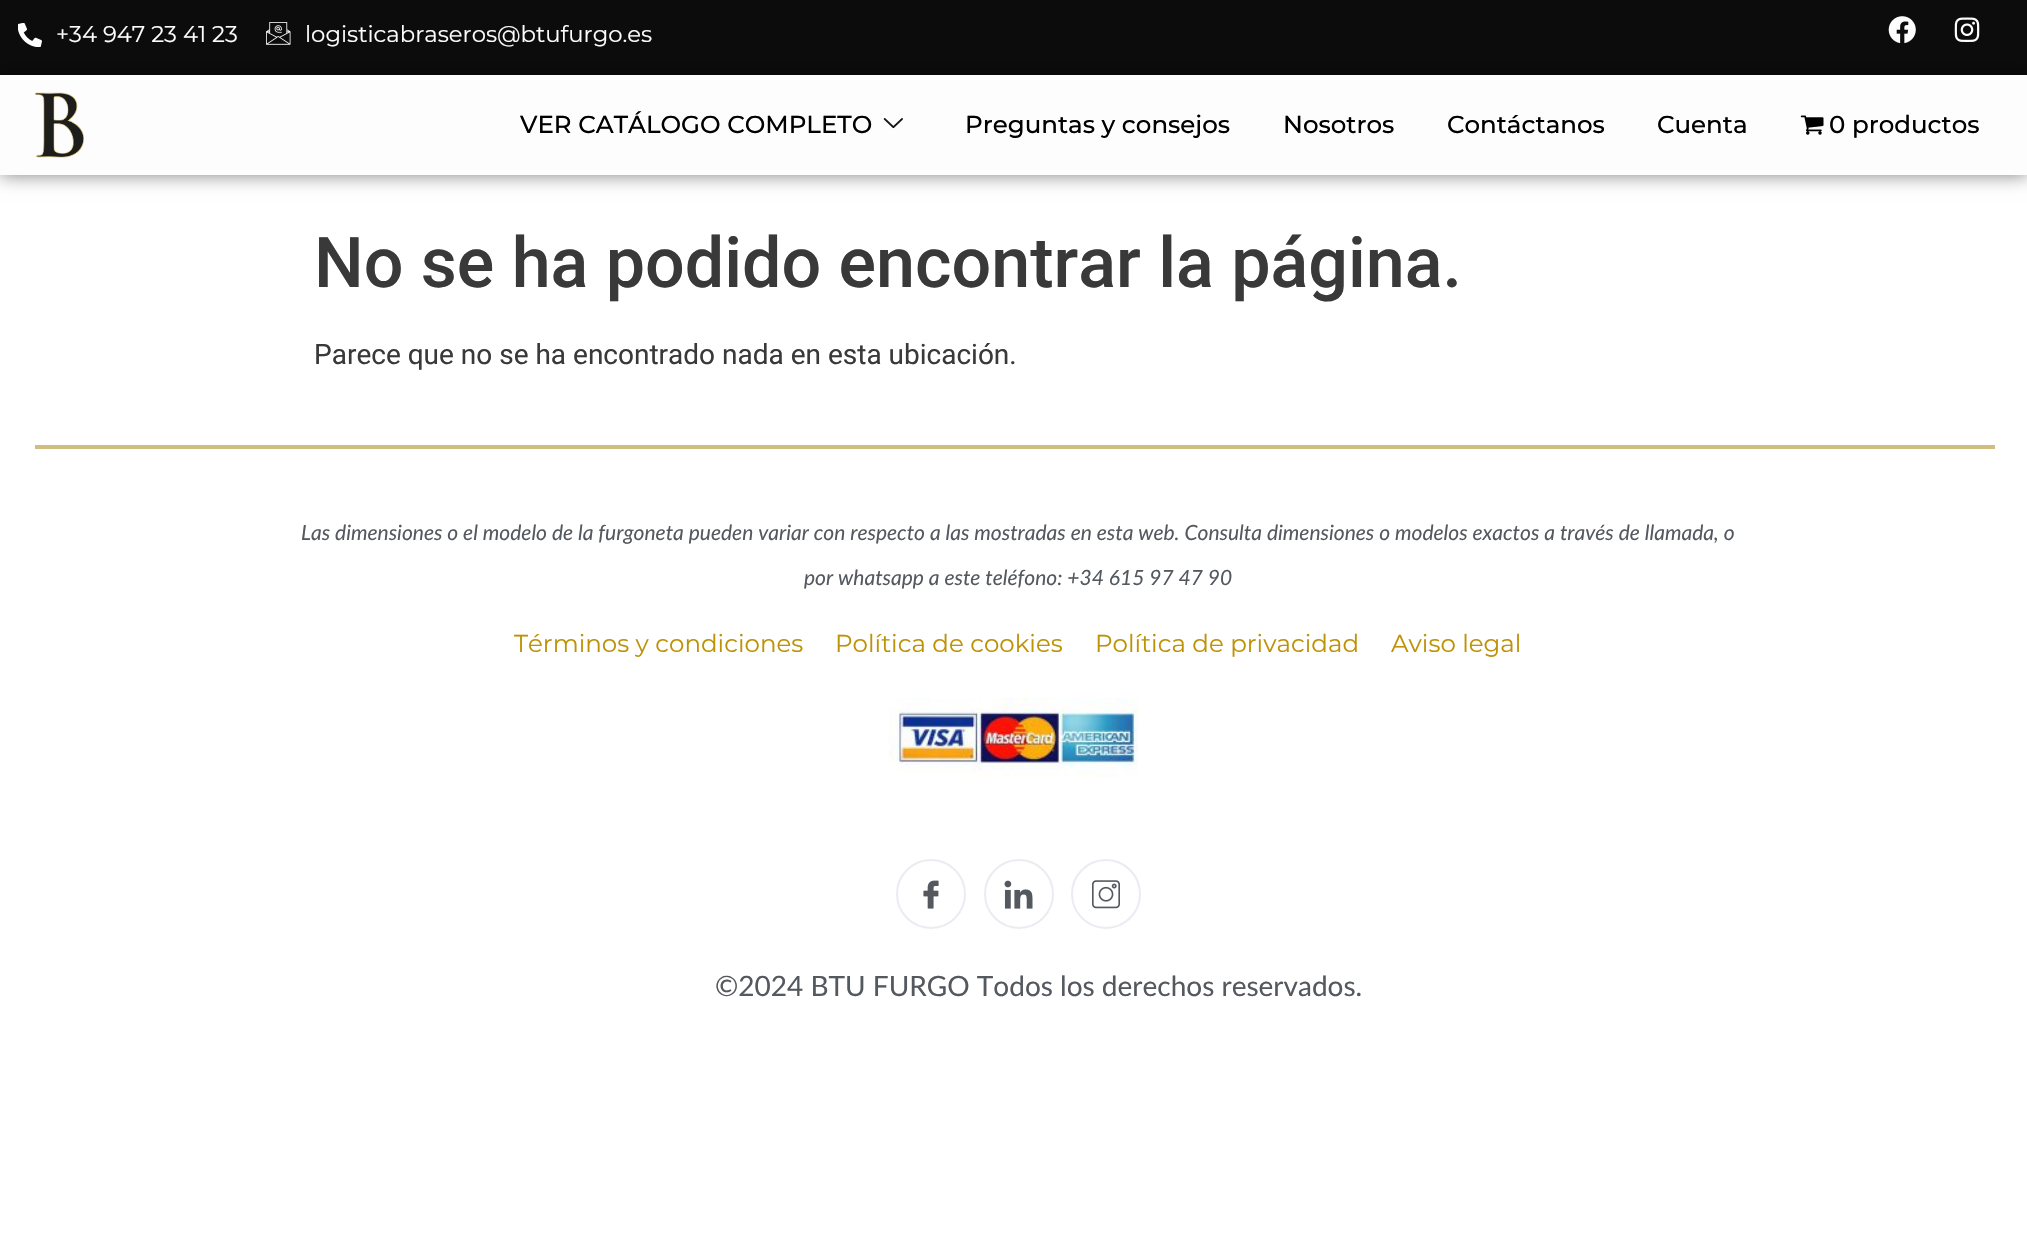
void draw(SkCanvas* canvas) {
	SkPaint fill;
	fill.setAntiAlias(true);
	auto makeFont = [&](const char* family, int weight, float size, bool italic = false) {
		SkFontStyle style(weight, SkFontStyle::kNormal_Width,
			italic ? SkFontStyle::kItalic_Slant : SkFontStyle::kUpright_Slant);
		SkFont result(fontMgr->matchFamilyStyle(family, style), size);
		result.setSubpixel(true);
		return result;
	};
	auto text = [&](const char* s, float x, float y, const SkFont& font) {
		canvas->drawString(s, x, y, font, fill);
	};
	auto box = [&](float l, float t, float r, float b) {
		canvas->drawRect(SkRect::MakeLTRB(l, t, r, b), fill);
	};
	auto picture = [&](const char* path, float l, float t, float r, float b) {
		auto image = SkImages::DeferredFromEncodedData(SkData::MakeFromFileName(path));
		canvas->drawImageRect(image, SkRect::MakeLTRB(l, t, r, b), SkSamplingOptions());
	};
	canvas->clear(0xFFFFFFFF);
	fill.setColor(0xFF0C0C0C);
	box(0, 0, 2027, 75);
	picture("image0.png", 18, 23, 42, 47);
	picture("image1.png", 266, 22, 291, 45);
	picture("image2.png", 1888, 16, 1916, 44);
	picture("image3.png", 1954, 17, 1980, 42);
	fill.setColor(0x80000000);
	fill.setMaskFilter(SkMaskFilter::MakeBlur(kNormal_SkBlurStyle, 9));
	canvas->drawRect(SkRect::MakeLTRB(0, 75, 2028, 175), fill);
	fill.setMaskFilter(nullptr);
	fill.setColor(0xFFFDFDFD);
	box(0, 75, 2027, 175);
	picture("image4.png", 35, 92, 84, 158);
	picture("image5.png", 883, 118, 903, 129);
	picture("image6.png", 1800, 115, 1824, 135);
	fill.setColor(0xFFD1BE7E);
	box(35, 445, 1995, 449);
	picture("image7.png", 889, 698, 1139, 777);
	fill.setStyle(SkPaint::kStroke_Style);
	fill.setStrokeWidth(2);
	fill.setColor(0xFFEBECF2);
	canvas->drawCircle(931, 894, 34, fill);
	picture("image8.png", 923, 880, 939, 909);
	canvas->drawCircle(1019, 894, 34, fill);
	picture("image9.png", 1004, 880, 1033, 909);
	canvas->drawCircle(1106, 894, 34, fill);
	picture("image10.png", 1092, 880, 1120, 909);
	auto font1 = makeFont("Montserrat", 400, 22.75f);
	fill.setStyle(SkPaint::kFill_Style);
	fill.setColor(0xFFFDFDFD);
	text("+34 947 23 41 23", 56, 42, font1);
	text("logisticabraseros@btufurgo.es", 305, 42, font1);
	auto font2 = makeFont("Montserrat", 500, 24.5f);
	fill.setColor(0xFF000000);
	text("VER CATÁLOGO COMPLETO", 520, 133, font2);
	text("Preguntas y consejos", 965, 133, font2);
	text("Nosotros", 1283, 133, font2);
	text("Contáctanos", 1447, 133, font2);
	text("Cuenta", 1657, 133, font2);
	text("0 productos", 1829, 133, font2);
	auto font3 = makeFont("Roboto", 500, 70);
	fill.setColor(0xFF393939);
	text("No se ha podido encontrar la página.", 314, 287, font3);
	auto font4 = makeFont("Roboto", 400, 28);
	text("Parece que no se ha encontrado nada en esta ubicación.", 314, 364, font4);
	auto font5 = makeFont("Lato", 400, 21, true);
	fill.setColor(0xFF54595F);
	text("Las dimensiones o el modelo de la furgoneta pueden variar con respecto a las mostradas en esta web. Consulta dimensiones o modelos exactos a través de llamada, o", 301, 540, font5);
	text("por whatsapp a este teléfono: +34 615 97 47 90", 804, 585, font5);
	auto font6 = makeFont("Montserrat", 400, 24.5f);
	fill.setColor(0xFFBE9205);
	text("Términos y condiciones", 514, 652, font6);
	text("Política de cookies", 835, 652, font6);
	text("Política de privacidad", 1095, 652, font6);
	text("Aviso legal", 1391, 652, font6);
	auto font7 = makeFont("Lato", 400, 28);
	fill.setColor(0xFF54595F);
	text("©2024 BTU FURGO Todos los derechos reservados.", 715, 996, font7);
}
